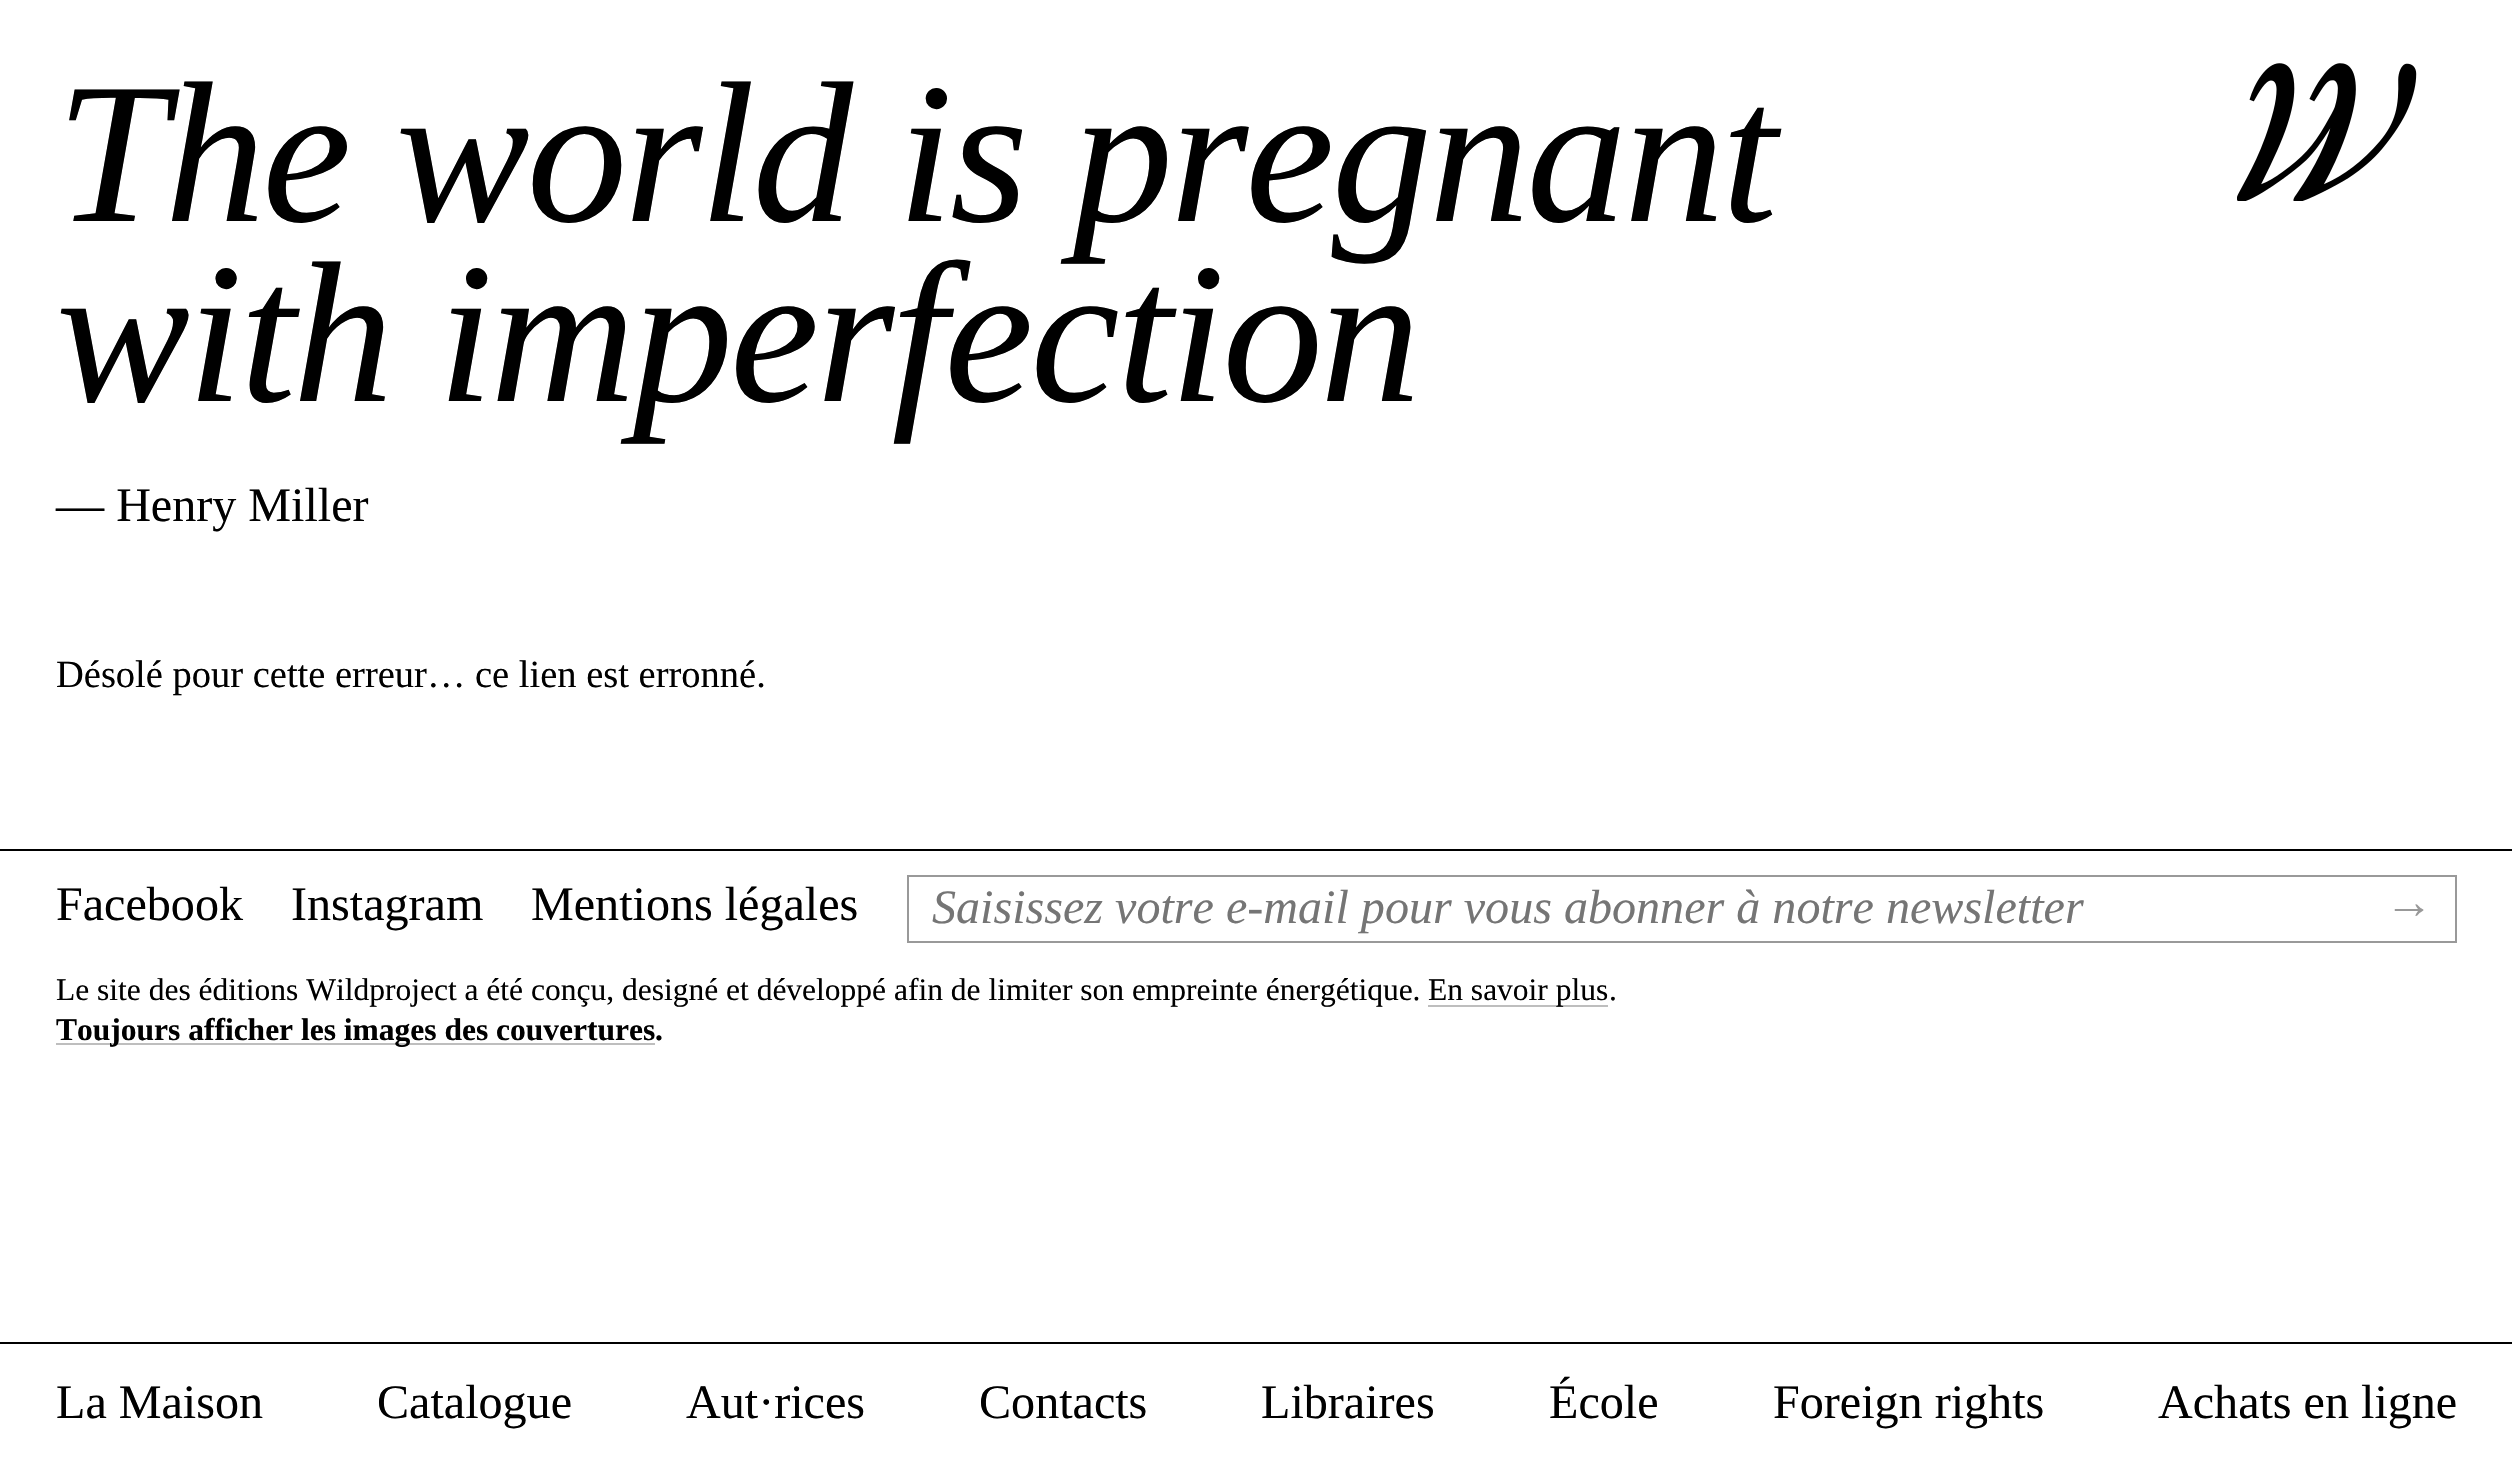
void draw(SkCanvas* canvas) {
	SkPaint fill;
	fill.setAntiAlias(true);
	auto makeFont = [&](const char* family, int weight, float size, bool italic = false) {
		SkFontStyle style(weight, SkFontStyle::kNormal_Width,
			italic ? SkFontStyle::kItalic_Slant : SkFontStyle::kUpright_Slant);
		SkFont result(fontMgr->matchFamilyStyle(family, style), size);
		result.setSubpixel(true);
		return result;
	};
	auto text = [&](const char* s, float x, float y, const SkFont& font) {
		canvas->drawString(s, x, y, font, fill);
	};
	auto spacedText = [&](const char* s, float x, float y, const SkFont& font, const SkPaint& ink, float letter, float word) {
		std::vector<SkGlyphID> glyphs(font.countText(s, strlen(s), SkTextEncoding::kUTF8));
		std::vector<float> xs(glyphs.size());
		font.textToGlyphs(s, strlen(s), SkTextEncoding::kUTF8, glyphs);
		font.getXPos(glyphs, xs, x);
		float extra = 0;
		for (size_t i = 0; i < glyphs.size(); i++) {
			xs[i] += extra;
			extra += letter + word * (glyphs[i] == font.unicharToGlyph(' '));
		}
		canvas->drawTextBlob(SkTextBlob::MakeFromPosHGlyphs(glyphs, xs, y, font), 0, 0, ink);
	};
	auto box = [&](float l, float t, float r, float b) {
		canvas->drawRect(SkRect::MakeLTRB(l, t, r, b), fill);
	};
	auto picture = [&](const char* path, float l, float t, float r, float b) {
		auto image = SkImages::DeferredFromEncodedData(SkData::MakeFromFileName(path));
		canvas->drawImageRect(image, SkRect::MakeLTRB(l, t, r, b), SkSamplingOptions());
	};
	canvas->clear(0xFFFFFFFF);
	picture("image0.png", 2237, 63, 2417, 201);
	fill.setColor(0xFF000000);
	box(0, 849, 2512, 851);
	fill.setStyle(SkPaint::kStroke_Style);
	fill.setStrokeWidth(2);
	fill.setColor(0xFF999999);
	canvas->drawRect(SkRect::MakeLTRB(908, 876, 2456, 942), fill);
	fill.setStyle(SkPaint::kFill_Style);
	fill.setColor(0xFFBEBEBE);
	box(1428, 1005, 1608, 1007);
	box(56, 1043, 655, 1045);
	fill.setColor(0xFF000000);
	box(0, 1342, 2512, 1344);
	auto font1 = makeFont("Liberation Serif", 400, 201, true);
	spacedText("The world is pregnant", 56, 221, font1, fill, -3, 0);
	spacedText("with imperfection", 56, 401, font1, fill, -3, 0);
	auto font2 = makeFont("Liberation Serif", 400, 48.1f);
	text("— Henry Miller", 56, 521, font2);
	auto font3 = makeFont("Liberation Serif", 400, 38.5f);
	text("Désolé pour cette erreur… ce lien est erronné.", 56, 687, font3);
	text("Facebook", 56, 920, font2);
	text("Instagram", 291, 920, font2);
	text("Mentions légales", 531, 920, font2);
	auto font4 = makeFont("Liberation Serif", 400, 48.1f, true);
	fill.setColor(0xFF757575);
	text("Saisissez votre e-mail pour vous abonner à notre newsletter", 932, 923, font4);
	fill.setColor(0xFF999999);
	text("→", 2385, 918, font2);
	auto font5 = makeFont("Liberation Serif", 400, 31.5f);
	fill.setColor(0xFF000000);
	text("Le site des éditions Wildproject a été conçu, designé et développé afin de limiter son empreinte énergétique.", 56, 1000, font5);
	text("En savoir plus", 1428, 1000, font5);
	text(".", 1609, 1000, font5);
	auto font6 = makeFont("Liberation Serif", 700, 31.5f);
	text("Toujours afficher les images des couvertures", 56, 1040, font6);
	text(".", 655, 1040, font6);
	text("La Maison", 56, 1418, font2);
	text("Catalogue", 377, 1418, font2);
	text("Aut·rices", 686, 1418, font2);
	text("Contacts", 979, 1418, font2);
	text("Libraires", 1261, 1418, font2);
	text("École", 1549, 1418, font2);
	text("Foreign rights", 1773, 1418, font2);
	text("Achats en ligne", 2158, 1418, font2);
}
